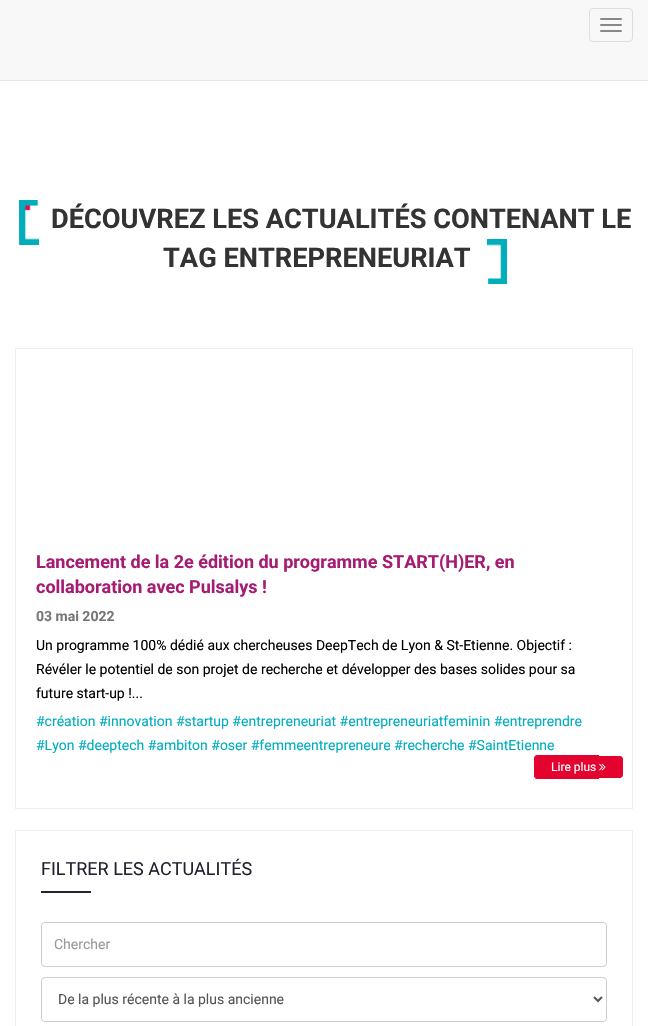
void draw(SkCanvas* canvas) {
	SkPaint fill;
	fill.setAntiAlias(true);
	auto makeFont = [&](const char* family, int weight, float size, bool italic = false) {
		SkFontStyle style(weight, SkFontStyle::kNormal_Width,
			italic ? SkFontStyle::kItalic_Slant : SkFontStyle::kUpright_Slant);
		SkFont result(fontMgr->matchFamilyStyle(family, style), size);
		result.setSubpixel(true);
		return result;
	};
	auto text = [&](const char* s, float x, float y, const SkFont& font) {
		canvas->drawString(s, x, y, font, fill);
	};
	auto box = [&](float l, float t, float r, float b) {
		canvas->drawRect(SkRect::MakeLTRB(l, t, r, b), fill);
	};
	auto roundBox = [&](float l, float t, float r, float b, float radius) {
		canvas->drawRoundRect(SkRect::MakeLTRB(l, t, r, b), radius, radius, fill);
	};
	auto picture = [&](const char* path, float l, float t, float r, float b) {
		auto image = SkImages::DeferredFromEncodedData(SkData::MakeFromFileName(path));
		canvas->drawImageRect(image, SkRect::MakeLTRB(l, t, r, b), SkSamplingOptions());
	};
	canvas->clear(0xFFFFFFFF);
	fill.setColor(0xFFF8F8F8);
	box(0, 0, 648, 80);
	fill.setColor(0xFFE7E7E7);
	box(0, 80, 648, 81);
	fill.setStyle(SkPaint::kStroke_Style);
	fill.setStrokeWidth(1);
	fill.setColor(0xFFDDDDDD);
	canvas->drawRoundRect(SkRect::MakeLTRB(589.5f, 8.5f, 632.5f, 41.5f), 3.5f, 3.5f, fill);
	fill.setStyle(SkPaint::kFill_Style);
	fill.setColor(0xFF888888);
	roundBox(600, 18, 622, 20, 1);
	roundBox(600, 24, 622, 26, 1);
	roundBox(600, 30, 622, 32, 1);
	picture("image0.png", 19, 200, 39, 245);
	picture("image1.png", 487, 239, 507, 284);
	fill.setStyle(SkPaint::kStroke_Style);
	fill.setColor(0xFFEEEEEE);
	canvas->drawRect(SkRect::MakeLTRB(15.5f, 348.5f, 632.5f, 808.5f), fill);
	fill.setStyle(SkPaint::kFill_Style);
	fill.setColor(0xFFE4022E);
	canvas->drawPath(SkPathBuilder().moveTo(537, 755).lineTo(599, 755).lineTo(599, 779).lineTo(537, 779).cubicTo(535.5f, 779, 534, 777.5f, 534, 776).lineTo(534, 758).cubicTo(534, 756.5f, 535.5f, 755, 537, 755).close().detach(), fill);
	canvas->drawPath(SkPathBuilder().moveTo(599, 756).lineTo(620, 756).cubicTo(621.5f, 756, 623, 757.5f, 623, 759).lineTo(623, 775).cubicTo(623, 776.5f, 621.5f, 778, 620, 778).lineTo(599, 778).close().detach(), fill);
	picture("image2.png", 599, 763, 606, 771);
	fill.setStyle(SkPaint::kStroke_Style);
	fill.setColor(0xFFEEEEEE);
	canvas->drawRect(SkRect::MakeLTRB(15.5f, 830.5f, 632.5f, 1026.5f), fill);
	fill.setStyle(SkPaint::kFill_Style);
	fill.setColor(0xFF212331);
	box(41, 891, 91, 893);
	fill.setStyle(SkPaint::kStroke_Style);
	fill.setColor(0xFFCCCCCC);
	canvas->drawRoundRect(SkRect::MakeLTRB(41.5f, 922.5f, 606.5f, 966.5f), 3.5f, 3.5f, fill);
	canvas->drawRoundRect(SkRect::MakeLTRB(41.5f, 977.5f, 606.5f, 1021.5f), 3.5f, 3.5f, fill);
	fill.setStrokeWidth(2);
	fill.setColor(0xFF555555);
	canvas->drawPath(SkPathBuilder().moveTo(594, 997).lineTo(598, 1001).lineTo(602, 997).detach(), fill);
	auto font1 = makeFont("Roboto", 700, 27.2f);
	fill.setStyle(SkPaint::kFill_Style);
	fill.setColor(0xFF333333);
	text("DÉCOUVREZ LES ACTUALITÉS CONTENANT LE", 51, 228, font1);
	text("TAG ENTREPRENEURIAT", 163, 267, font1);
	auto font2 = makeFont("Roboto", 700, 18);
	fill.setColor(0xFFA51C74);
	text("Lancement de la 2e édition du programme START(H)ER, en", 36, 568, font2);
	text("collaboration avec Pulsalys !", 36, 593, font2);
	auto font3 = makeFont("Roboto", 700, 14);
	fill.setColor(0xFF777777);
	text("03 mai 2022", 36, 621, font3);
	auto font4 = makeFont("Roboto", 400, 14);
	fill.setColor(0xFF000000);
	text("Un programme 100% dédié aux chercheuses DeepTech de Lyon & St-Etienne. Objectif :", 36, 650, font4);
	text("Révéler le potentiel de son projet de recherche et développer des bases solides pour sa", 36, 674, font4);
	text("future start-up !...", 36, 698, font4);
	fill.setColor(0xFF00AEBF);
	text("#création #innovation #startup #entrepreneuriat #entrepreneuriatfeminin #entreprendre", 36, 726, font4);
	text("#Lyon #deeptech #ambiton #oser #femmeentrepreneure #recherche #SaintEtienne", 36, 750, font4);
	auto font5 = makeFont("Roboto", 400, 12);
	fill.setColor(0xFFFFFFFF);
	text("Lire plus", 551, 771, font5);
	auto font6 = makeFont("Roboto", 400, 18);
	fill.setColor(0xFF212331);
	text("FILTRER LES ACTUALITÉS", 41, 875, font6);
	fill.setColor(0xFF999999);
	text("Chercher", 54, 949, font4);
	fill.setColor(0xFF555555);
	text("De la plus récente à la plus ancienne", 58, 1004, font4);
}
